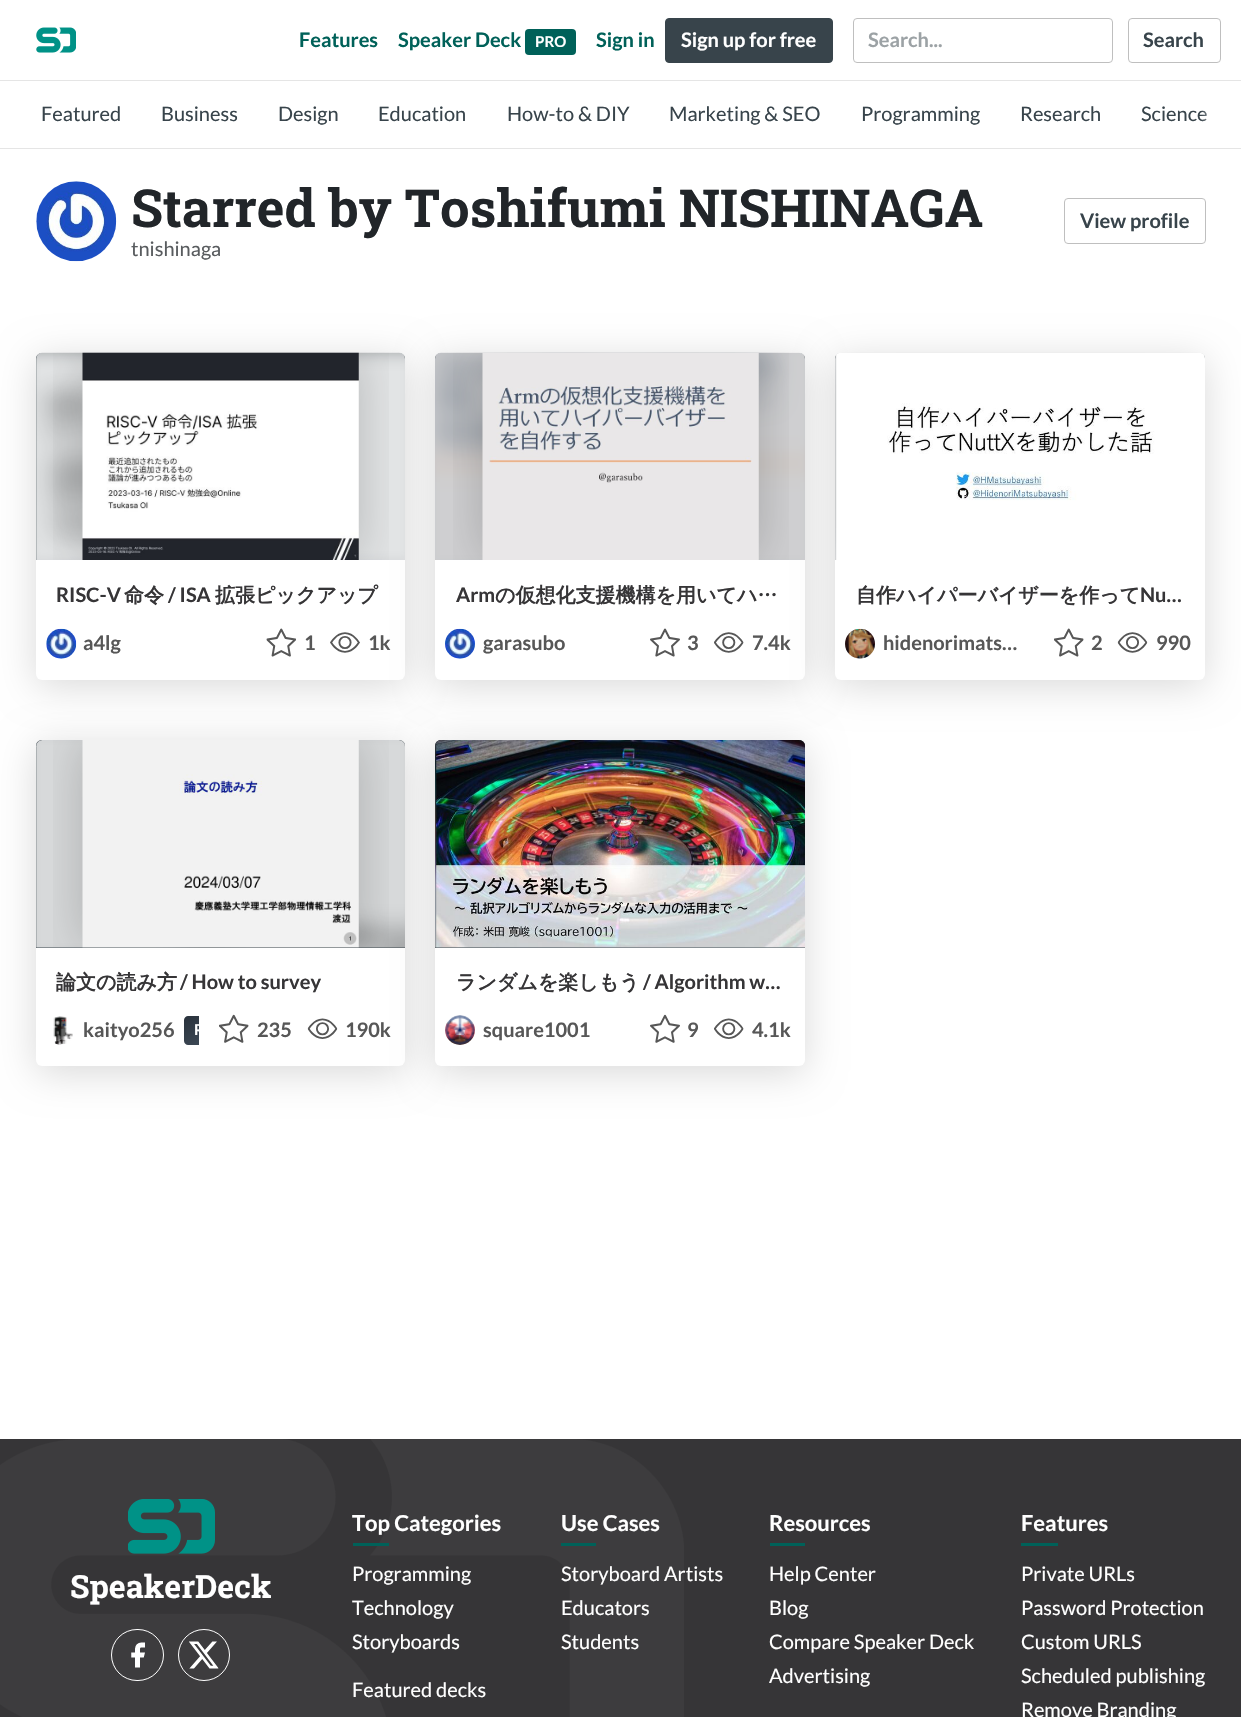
void draw(SkCanvas* canvas) {
	SkPaint fill;
	fill.setAntiAlias(true);
	auto makeFont = [&](const char* family, int weight, float size, bool italic = false) {
		SkFontStyle style(weight, SkFontStyle::kNormal_Width,
			italic ? SkFontStyle::kItalic_Slant : SkFontStyle::kUpright_Slant);
		SkFont result(fontMgr->matchFamilyStyle(family, style), size);
		result.setSubpixel(true);
		return result;
	};
	auto text = [&](const char* s, float x, float y, const SkFont& font) {
		canvas->drawString(s, x, y, font, fill);
	};
	auto box = [&](float l, float t, float r, float b) {
		canvas->drawRect(SkRect::MakeLTRB(l, t, r, b), fill);
	};
	auto roundBox = [&](float l, float t, float r, float b, float radius) {
		canvas->drawRoundRect(SkRect::MakeLTRB(l, t, r, b), radius, radius, fill);
	};
	auto picture = [&](const char* path, float l, float t, float r, float b) {
		auto image = SkImages::DeferredFromEncodedData(SkData::MakeFromFileName(path));
		canvas->drawImageRect(image, SkRect::MakeLTRB(l, t, r, b), SkSamplingOptions());
	};
	canvas->clear(0xFFFFFFFF);
	fill.setColor(0xFFE5E5E5);
	box(0, 80, 1241, 81);
	picture("image0.png", 36, 27, 76, 53);
	fill.setColor(0xFF006159);
	roundBox(525, 29, 576, 55, 4);
	fill.setColor(0xFF38444B);
	canvas->drawRoundRect(SkRect::MakeLTRB(665.5f, 18.5f, 832.5f, 62.5f), 3.5f, 3.5f, fill);
	fill.setStyle(SkPaint::kStroke_Style);
	fill.setStrokeWidth(1);
	canvas->drawRoundRect(SkRect::MakeLTRB(665.5f, 18.5f, 832.5f, 62.5f), 3.5f, 3.5f, fill);
	fill.setColor(0xFFBFBFBF);
	canvas->drawRoundRect(SkRect::MakeLTRB(853.5f, 18.5f, 1112.5f, 62.5f), 3.5f, 3.5f, fill);
	canvas->drawRoundRect(SkRect::MakeLTRB(1128.5f, 18.5f, 1220.5f, 62.5f), 3.5f, 3.5f, fill);
	fill.setStyle(SkPaint::kFill_Style);
	fill.setColor(0xFFE5E5E5);
	box(0, 148, 1241, 149);
	picture("image1.png", 36, 181, 117, 262);
	fill.setStyle(SkPaint::kStroke_Style);
	fill.setColor(0xFFBFBFBF);
	canvas->drawRoundRect(SkRect::MakeLTRB(1064.5f, 198.5f, 1205.5f, 243.5f), 3.5f, 3.5f, fill);
	fill.setStyle(SkPaint::kFill_Style);
	fill.setColor(0x26000000);
	fill.setMaskFilter(SkMaskFilter::MakeBlur(kNormal_SkBlurStyle, 19));
	canvas->drawRoundRect(SkRect::MakeLTRB(36, 359, 405, 686), 6, 6, fill);
	fill.setMaskFilter(nullptr);
	fill.setColor(0xFFFFFFFF);
	roundBox(36, 353, 405, 680, 6);
	fill.setColor(0xFF38444B);
	canvas->drawPath(SkPathBuilder().moveTo(42, 353).lineTo(399, 353).cubicTo(402.5f, 353, 405, 355.5f, 405, 359).lineTo(405, 560).lineTo(36, 560).lineTo(36, 359).cubicTo(36, 355.5f, 38.5f, 353, 42, 353).close().detach(), fill);
	fill.setColor(0x26000000);
	fill.setMaskFilter(SkMaskFilter::MakeBlur(kNormal_SkBlurStyle, 19));
	canvas->drawRoundRect(SkRect::MakeLTRB(435, 359, 805, 686), 6, 6, fill);
	fill.setMaskFilter(nullptr);
	picture("image2.png", 36, 352, 405, 560);
	picture("image3.png", 53, 352, 389, 560);
	picture("image4.png", 46, 628, 77, 659);
	picture("image5.png", 266, 628, 296, 657);
	picture("image6.png", 330, 632, 360, 653);
	fill.setColor(0xFFFFFFFF);
	roundBox(435, 353, 805, 680, 6);
	fill.setColor(0xFF38444B);
	canvas->drawPath(SkPathBuilder().moveTo(441, 353).lineTo(799, 353).cubicTo(802.5f, 353, 805, 355.5f, 805, 359).lineTo(805, 560).lineTo(435, 560).lineTo(435, 359).cubicTo(435, 355.5f, 437.5f, 353, 441, 353).close().detach(), fill);
	fill.setColor(0x26000000);
	fill.setMaskFilter(SkMaskFilter::MakeBlur(kNormal_SkBlurStyle, 19));
	canvas->drawRoundRect(SkRect::MakeLTRB(835, 359, 1205, 686), 6, 6, fill);
	fill.setMaskFilter(nullptr);
	picture("image7.png", 435, 352, 805, 560);
	picture("image8.png", 453, 352, 789, 560);
	picture("image9.png", 445, 628, 475, 659);
	picture("image10.png", 650, 628, 680, 657);
	picture("image11.png", 714, 632, 744, 653);
	fill.setColor(0xFFFFFFFF);
	roundBox(835, 353, 1205, 680, 6);
	fill.setColor(0xFF38444B);
	canvas->drawPath(SkPathBuilder().moveTo(841, 353).lineTo(1199, 353).cubicTo(1202.5f, 353, 1205, 355.5f, 1205, 359).lineTo(1205, 560).lineTo(835, 560).lineTo(835, 359).cubicTo(835, 355.5f, 837.5f, 353, 841, 353).close().detach(), fill);
	picture("image13.png", 835, 353, 1205, 560);
	picture("image12.png", 835, 352, 1205, 560);
	picture("image14.png", 845, 628, 875, 659);
	picture("image15.png", 1054, 628, 1084, 657);
	picture("image16.png", 1117, 632, 1148, 653);
	fill.setColor(0x26000000);
	fill.setMaskFilter(SkMaskFilter::MakeBlur(kNormal_SkBlurStyle, 19));
	canvas->drawRoundRect(SkRect::MakeLTRB(36, 746, 405, 1073), 6, 6, fill);
	fill.setMaskFilter(nullptr);
	fill.setColor(0xFFFFFFFF);
	roundBox(36, 740, 405, 1066, 6);
	fill.setColor(0xFF38444B);
	canvas->drawPath(SkPathBuilder().moveTo(42, 740).lineTo(399, 740).cubicTo(402.5f, 740, 405, 742.5f, 405, 746).lineTo(405, 948).lineTo(36, 948).lineTo(36, 746).cubicTo(36, 742.5f, 38.5f, 740, 42, 740).close().detach(), fill);
	fill.setColor(0x26000000);
	fill.setMaskFilter(SkMaskFilter::MakeBlur(kNormal_SkBlurStyle, 19));
	canvas->drawRoundRect(SkRect::MakeLTRB(435, 746, 805, 1073), 6, 6, fill);
	fill.setMaskFilter(nullptr);
	picture("image17.png", 36, 740, 405, 948);
	picture("image18.png", 53, 740, 389, 948);
	picture("image19.png", 53, 1016, 73, 1045);
	{
		const SkColor colors[] = {0xFF485563, 0xFF29323C};
		const float stops[] = {0, 1};
		const SkPoint ends[] = {{223, 1052}, {196, 1009}};
		fill.setShader(SkGradientShader::MakeLinear(ends, colors, stops, 2, SkTileMode::kClamp));
		fill.setAlpha(255);
	}
	canvas->drawPath(SkPathBuilder().moveTo(188, 1016).lineTo(199, 1016).lineTo(199, 1045).lineTo(188, 1045).cubicTo(186, 1045, 184, 1043, 184, 1041).lineTo(184, 1020).cubicTo(184, 1018, 186, 1016, 188, 1016).close().detach(), fill);
	picture("image20.png", 219, 1014, 249, 1043);
	picture("image21.png", 307, 1018, 338, 1039);
	fill.setShader(nullptr);
	fill.setColor(0xFFFFFFFF);
	roundBox(435, 740, 805, 1066, 6);
	fill.setColor(0xFF38444B);
	canvas->drawPath(SkPathBuilder().moveTo(441, 740).lineTo(799, 740).cubicTo(802.5f, 740, 805, 742.5f, 805, 746).lineTo(805, 948).lineTo(435, 948).lineTo(435, 746).cubicTo(435, 742.5f, 437.5f, 740, 441, 740).close().detach(), fill);
	picture("image22.png", 435, 740, 805, 948);
	picture("image23.png", 435, 740, 805, 948);
	picture("image24.png", 445, 1015, 475, 1045);
	picture("image25.png", 650, 1014, 680, 1043);
	picture("image26.png", 714, 1018, 744, 1039);
	fill.setColor(0xFF363537);
	box(0, 1439, 1241, 1717);
	picture("image27.png", 0, 1439, 684, 1717);
	picture("image28.png", 128, 1499, 215, 1554);
	fill.setStyle(SkPaint::kStroke_Style);
	fill.setColor(0xFFFFFFFF);
	canvas->drawRoundRect(SkRect::MakeLTRB(111.5f, 1629.5f, 163.5f, 1680.5f), 25.5f, 25.5f, fill);
	picture("image29.png", 131, 1642, 145, 1668);
	canvas->drawCircle(204, 1655, 25.5f, fill);
	picture("image30.png", 189, 1641, 219, 1669);
	fill.setStyle(SkPaint::kFill_Style);
	fill.setColor(0xFF006159);
	box(353, 1543, 389, 1546);
	box(561, 1543, 596, 1546);
	box(770, 1543, 805, 1546);
	box(1021, 1543, 1058, 1546);
	auto font1 = makeFont("Lato", 700, 20);
	text("Features", 299, 47, font1);
	text("Speaker Deck", 398, 47, font1);
	auto font2 = makeFont("Lato", 700, 15);
	fill.setColor(0xFFFFFFFF);
	text("PRO", 535, 47, font2);
	fill.setColor(0xFF006159);
	text("Sign in", 596, 47, font1);
	fill.setColor(0xFFFFFFFF);
	text("Sign up for free", 681, 47, font1);
	fill.setColor(0xFF9CA2A5);
	text("Search...", 868, 47, font1);
	fill.setColor(0xFF38444B);
	text("Search", 1143, 47, font1);
	auto font3 = makeFont("Lato", 400, 20);
	text("Featured", 41, 121, font3);
	text("Business", 161, 121, font3);
	text("Design", 278, 121, font3);
	text("Education", 378, 121, font3);
	text("How-to & DIY", 507, 121, font3);
	text("Marketing & SEO", 669, 121, font3);
	text("Programming", 861, 121, font3);
	text("Research", 1020, 121, font3);
	text("Science", 1141, 121, font3);
	{
		const SkColor colors[] = {0x00FFFFFF, 0xFFFFFFFF};
		const float stops[] = {0, 1};
		const SkPoint ends[] = {{1201, 124}, {1221, 124}};
		fill.setShader(SkGradientShader::MakeLinear(ends, colors, stops, 2, SkTileMode::kClamp));
		fill.setAlpha(255);
	}
	box(1201, 110, 1207, 121);
	auto font4 = makeFont("Roboto Slab", 700, 52.5f);
	fill.setShader(nullptr);
	fill.setColor(0xFF212529);
	text("Starred by Toshifumi NISHINAGA", 131, 227, font4);
	fill.setColor(0xFF595C5F);
	text("tnishinaga", 131, 256, font3);
	fill.setColor(0xFF38444B);
	text("View profile", 1080, 228, font1);
	fill.setColor(0xFF363537);
	text("RISC-V", 56, 602, font1);
	auto font5 = makeFont("WenQuanYi Zen Hei", 700, 20);
	text("命令", 124, 602, font5);
	text("/ ISA", 168, 602, font1);
	text("拡張ピックアップ", 215, 602, font5);
	fill.setColor(0xFF575757);
	text("a4lg", 83, 650, font1);
	text("1", 304, 650, font1);
	text("1k", 368, 650, font1);
	fill.setColor(0xFF363537);
	text("Arm", 456, 602, font1);
	text("の仮想化支援機構を用いてハ…", 495, 602, font5);
	fill.setColor(0xFF575757);
	text("garasubo", 483, 650, font1);
	text("3", 687, 650, font1);
	text("7.4k", 752, 650, font1);
	fill.setColor(0xFF363537);
	text("自作ハイパーバイザーを作って", 856, 602, font5);
	text("Nu…", 1140, 602, font1);
	fill.setColor(0xFF575757);
	text("hidenorimats…", 883, 650, font1);
	text("2", 1091, 650, font1);
	text("990", 1156, 650, font1);
	fill.setColor(0xFF363537);
	text("論文の読み方", 56, 989, font5);
	text("/ How to survey", 180, 989, font1);
	fill.setColor(0xFF575757);
	text("kaityo256", 83, 1037, font1);
	canvas->save();
	canvas->clipRect(SkRect::MakeLTRB(46, 996, 199, 1066));
	fill.setColor(0xFFFFFFFF);
	text("P", 194, 1035, font2);
	canvas->restore();
	fill.setColor(0xFF575757);
	text("235", 257, 1037, font1);
	text("190k", 345, 1037, font1);
	fill.setColor(0xFF363537);
	text("ランダムを楽しもう", 456, 989, font5);
	text("/ Algorithm w…", 643, 989, font1);
	fill.setColor(0xFF575757);
	text("square1001", 483, 1037, font1);
	text("9", 687, 1037, font1);
	text("4.1k", 752, 1037, font1);
	auto font6 = makeFont("Roboto Slab", 700, 32);
	fill.setColor(0xFFFFFFFF);
	text("SpeakerDeck", 70, 1598, font6);
	auto font7 = makeFont("Lato", 700, 22);
	text("Top Categories", 352, 1531, font7);
	text("Programming", 352, 1581, font3);
	text("Technology", 352, 1615, font3);
	text("Storyboards", 352, 1649, font3);
	text("Featured decks", 352, 1697, font3);
	text("Use Cases", 561, 1531, font7);
	text("Storyboard Artists", 561, 1581, font3);
	text("Educators", 561, 1615, font3);
	text("Students", 561, 1649, font3);
	text("Resources", 769, 1531, font7);
	text("Help Center", 769, 1581, font3);
	text("Blog", 769, 1615, font3);
	text("Compare Speaker Deck", 769, 1649, font3);
	text("Advertising", 769, 1683, font3);
	text("Features", 1021, 1531, font7);
	text("Private URLs", 1021, 1581, font3);
	text("Password Protection", 1021, 1615, font3);
	text("Custom URLS", 1021, 1649, font3);
	text("Scheduled publishing", 1021, 1683, font3);
	text("Remove Branding", 1021, 1717, font3);
}
